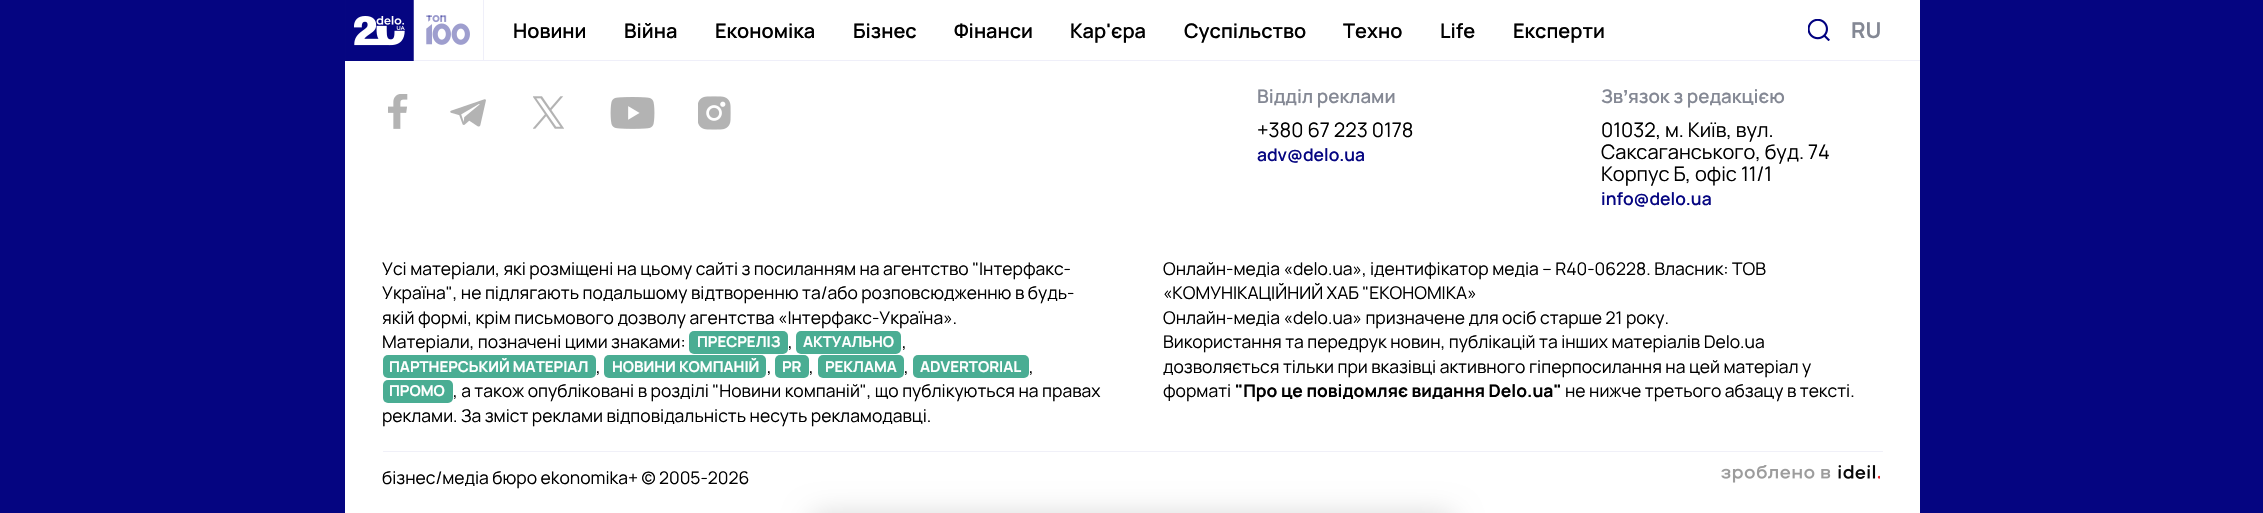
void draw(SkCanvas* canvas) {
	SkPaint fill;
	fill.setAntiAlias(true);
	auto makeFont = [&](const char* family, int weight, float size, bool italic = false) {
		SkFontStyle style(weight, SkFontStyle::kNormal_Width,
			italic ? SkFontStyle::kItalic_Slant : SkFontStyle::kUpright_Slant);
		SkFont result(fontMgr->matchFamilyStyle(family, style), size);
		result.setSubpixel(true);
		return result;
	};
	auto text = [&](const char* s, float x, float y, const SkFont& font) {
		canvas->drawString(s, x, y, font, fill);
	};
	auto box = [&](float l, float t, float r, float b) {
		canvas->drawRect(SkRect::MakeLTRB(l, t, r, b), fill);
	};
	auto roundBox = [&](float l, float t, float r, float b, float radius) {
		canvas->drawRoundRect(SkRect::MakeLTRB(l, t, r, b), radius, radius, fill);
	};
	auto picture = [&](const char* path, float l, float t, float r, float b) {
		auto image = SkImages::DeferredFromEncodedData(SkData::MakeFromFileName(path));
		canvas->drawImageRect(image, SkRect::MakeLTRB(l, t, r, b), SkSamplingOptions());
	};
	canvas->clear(0xFF050581);
	fill.setColor(0xFFFFFFFF);
	box(345, 61, 1920, 513);
	box(413, 0, 1920, 60);
	fill.setColor(0xFFEFEFF9);
	box(413, 60, 1920, 61);
	picture("image0.png", 345, 0, 414, 61);
	picture("image1.png", 426, 15, 470, 45);
	box(483, 0, 484, 60);
	picture("image2.png", 1808, 19, 1830, 41);
	picture("image3.png", 388, 94, 408, 129);
	picture("image4.png", 450, 99, 486, 127);
	picture("image5.png", 533, 96, 564, 129);
	picture("image6.png", 610, 97, 655, 129);
	picture("image7.png", 698, 96, 731, 130);
	fill.setColor(0xFF4AAD93);
	roundBox(689, 331, 788, 354, 5);
	roundBox(796, 331, 901, 354, 5);
	roundBox(383, 355, 596, 378, 5);
	roundBox(604, 355, 766, 378, 5);
	roundBox(775, 355, 809, 378, 5);
	roundBox(818, 355, 904, 378, 5);
	roundBox(913, 355, 1029, 378, 5);
	roundBox(383, 380, 453, 403, 5);
	fill.setColor(0xFFF0F0F8);
	roundBox(383, 451, 1883, 452, 0.5f);
	picture("image8.png", 1721, 465, 1880, 483);
	fill.setColor(0x26000000);
	fill.setMaskFilter(SkMaskFilter::MakeBlur(kNormal_SkBlurStyle, 14));
	canvas->drawRoundRect(SkRect::MakeLTRB(811, 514, 1454, 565), 10, 10, fill);
	fill.setMaskFilter(nullptr);
	auto font1 = makeFont("Manrope", 600, 20);
	fill.setColor(0xFF000000);
	text("Новини", 513, 38, font1);
	text("Війна", 624, 38, font1);
	text("Економіка", 715, 38, font1);
	text("Бізнес", 853, 38, font1);
	text("Фінанси", 954, 38, font1);
	text("Кар'єра", 1070, 38, font1);
	text("Суспільство", 1184, 38, font1);
	text("Техно", 1343, 38, font1);
	text("Life", 1440, 38, font1);
	text("Експерти", 1513, 38, font1);
	auto font2 = makeFont("Manrope", 700, 22);
	fill.setColor(0xFF848894);
	text("RU", 1851, 38, font2);
	auto font3 = makeFont("Manrope", 600, 18.75f);
	text("Відділ реклами", 1257, 103, font3);
	auto font4 = makeFont("Manrope", 400, 20);
	fill.setColor(0xFF000000);
	text("+380 67 223 0178", 1257, 137, font4);
	auto font5 = makeFont("Manrope", 600, 17.5f);
	fill.setColor(0xFF050581);
	text("adv@delo.ua", 1257, 161, font5);
	fill.setColor(0xFF848894);
	text("Зв", 1601, 103, font3);
	auto font6 = makeFont("Liberation Sans", 700, 18.75f);
	text("ʼ", 1623, 103, font6);
	text("язок з редакцією", 1628, 103, font3);
	fill.setColor(0xFF000000);
	text("01032, м. Київ, вул.", 1601, 137, font4);
	text("Саксаганського, буд. 74", 1601, 159, font4);
	text("Корпус Б, офіс 11/1", 1601, 181, font4);
	fill.setColor(0xFF050581);
	text("info@delo.ua", 1601, 205, font5);
	auto font7 = makeFont("Manrope", 400, 17.5f);
	fill.setColor(0xFF000000);
	text("Усі матеріали, які розміщені на цьому сайті з посиланням на агентство \"Інтерфакс-", 382, 275, font7);
	text("Україна\", не підлягають подальшому відтворенню та/або розповсюдженню в будь-", 382, 299, font7);
	text("якій формі, крім письмового дозволу агентства «Інтерфакс-Україна».", 382, 324, font7);
	text("Матеріали, позначені цими знаками:", 382, 348, font7);
	auto font8 = makeFont("Manrope", 700, 15);
	fill.setColor(0xFFFFFFFF);
	text("ПРЕСРЕЛІЗ", 697, 347, font8);
	fill.setColor(0xFF000000);
	text(",", 788, 348, font7);
	fill.setColor(0xFFFFFFFF);
	text("АКТУАЛЬНО", 803, 347, font8);
	fill.setColor(0xFF000000);
	text(",", 902, 348, font7);
	fill.setColor(0xFFFFFFFF);
	text("ПАРТНЕРСЬКИЙ МАТЕРІАЛ", 389, 372, font8);
	fill.setColor(0xFF000000);
	text(",", 596, 373, font7);
	fill.setColor(0xFFFFFFFF);
	text("НОВИНИ КОМПАНІЙ", 612, 372, font8);
	fill.setColor(0xFF000000);
	text(",", 767, 373, font7);
	fill.setColor(0xFFFFFFFF);
	text("PR", 782, 372, font8);
	fill.setColor(0xFF000000);
	text(",", 809, 373, font7);
	fill.setColor(0xFFFFFFFF);
	text("РЕКЛАМА", 825, 372, font8);
	fill.setColor(0xFF000000);
	text(",", 904, 373, font7);
	fill.setColor(0xFFFFFFFF);
	text("ADVERTORIAL", 920, 372, font8);
	fill.setColor(0xFF000000);
	text(",", 1029, 373, font7);
	fill.setColor(0xFFFFFFFF);
	text("ПРОМО", 389, 396, font8);
	fill.setColor(0xFF000000);
	text(", а також опубліковані в розділі \"Новини компаній\", що публікуються на правах", 453, 397, font7);
	text("реклами. За зміст реклами відповідальність несуть рекламодавці.", 382, 422, font7);
	text("Онлайн-медіа «delo.ua», ідентифікатор медіа – R40-06228. Власник: ТОВ", 1163, 275, font7);
	text("«КОМУНІКАЦІЙНИЙ ХАБ \"ЕКОНОМІКА»", 1163, 299, font7);
	text("Онлайн-медіа «delo.ua» призначене для осіб старше 21 року.", 1163, 324, font7);
	text("Використання та передрук новин, публікацій та інших матеріалів Delo.ua", 1163, 348, font7);
	text("дозволяється тільки при вказівці активного гіперпосилання на цей матеріал у", 1163, 373, font7);
	text("форматі", 1163, 397, font7);
	auto font9 = makeFont("Manrope", 700, 17.5f);
	text("\"Про це повідомляє видання Delo.ua\"", 1235, 397, font9);
	text("не нижче третього абзацу в тексті.", 1565, 397, font7);
	text("бізнес/медіа бюро ekonomika+ © 2005-2026", 382, 484, font7);
}
